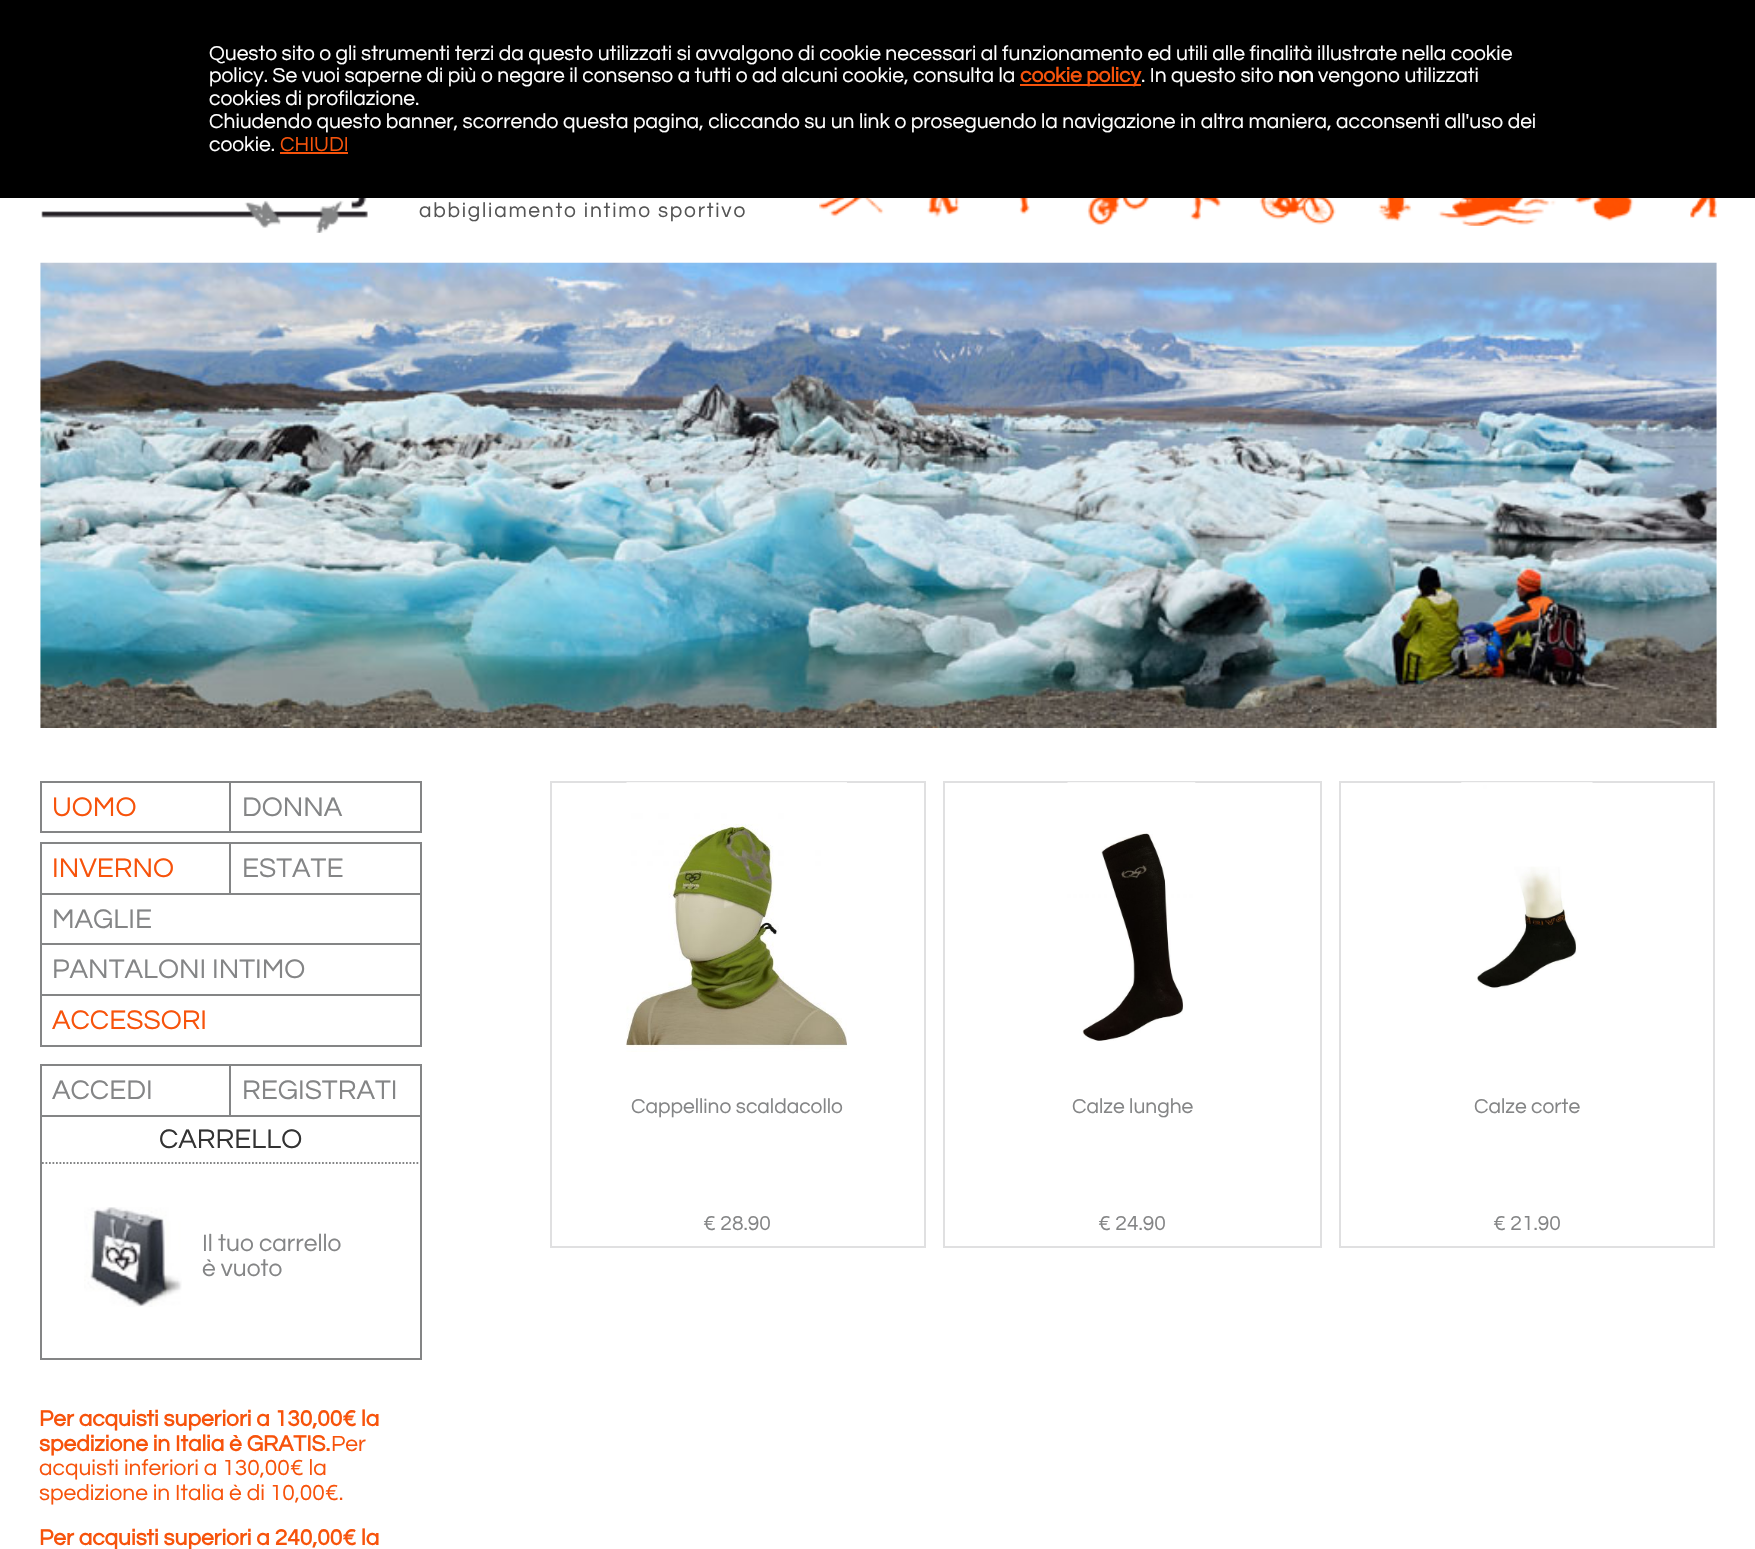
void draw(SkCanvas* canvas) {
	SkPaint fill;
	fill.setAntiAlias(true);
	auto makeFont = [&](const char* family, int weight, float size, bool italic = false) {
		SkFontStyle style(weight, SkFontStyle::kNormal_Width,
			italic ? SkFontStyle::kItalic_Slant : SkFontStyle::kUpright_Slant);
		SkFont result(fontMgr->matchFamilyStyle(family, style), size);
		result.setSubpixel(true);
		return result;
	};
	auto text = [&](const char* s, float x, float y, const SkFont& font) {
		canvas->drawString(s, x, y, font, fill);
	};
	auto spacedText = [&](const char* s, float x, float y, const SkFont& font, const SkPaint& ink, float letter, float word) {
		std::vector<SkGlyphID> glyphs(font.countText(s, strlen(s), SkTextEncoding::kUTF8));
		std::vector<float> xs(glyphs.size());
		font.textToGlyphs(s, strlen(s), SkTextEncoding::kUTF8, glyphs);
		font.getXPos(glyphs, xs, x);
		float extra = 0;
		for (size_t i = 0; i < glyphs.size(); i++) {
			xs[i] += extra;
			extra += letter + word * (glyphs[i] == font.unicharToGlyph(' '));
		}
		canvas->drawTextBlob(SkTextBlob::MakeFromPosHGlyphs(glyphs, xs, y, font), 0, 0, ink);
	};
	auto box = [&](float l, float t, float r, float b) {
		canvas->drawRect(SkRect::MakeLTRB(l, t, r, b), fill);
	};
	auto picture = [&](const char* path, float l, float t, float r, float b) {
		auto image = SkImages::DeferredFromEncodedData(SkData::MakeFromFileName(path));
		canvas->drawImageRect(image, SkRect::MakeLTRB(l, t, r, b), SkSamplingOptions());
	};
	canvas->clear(0xFFFFFFFF);
	fill.setColor(0xFF000000);
	box(0, 0, 1755, 198);
	fill.setColor(0xFFF7530B);
	box(1020, 84, 1141, 86);
	box(280, 152, 348, 154);
	picture("image0.png", 819, 198, 1717, 226);
	picture("image1.png", 41, 198, 368, 233);
	picture("image2.png", 1716, 589, 1717, 728);
	picture("image3.png", 40, 262, 1717, 728);
	fill.setColor(0xFF848586);
	box(229, 781, 422, 783);
	box(420, 781, 422, 833);
	box(229, 831, 422, 833);
	box(229, 781, 231, 833);
	box(40, 781, 231, 783);
	box(40, 831, 231, 833);
	box(40, 781, 42, 833);
	box(229, 842, 422, 844);
	box(40, 893, 422, 895);
	box(229, 842, 231, 894);
	box(40, 842, 231, 844);
	box(40, 943, 422, 945);
	box(40, 994, 422, 996);
	box(420, 994, 422, 1047);
	box(40, 1045, 422, 1047);
	box(40, 994, 42, 1047);
	box(40, 943, 42, 996);
	box(40, 893, 42, 945);
	box(40, 842, 42, 894);
	box(420, 943, 422, 996);
	box(420, 893, 422, 945);
	box(420, 842, 422, 894);
	box(229, 1064, 422, 1066);
	box(229, 1064, 231, 1117);
	box(40, 1064, 231, 1066);
	box(40, 1064, 42, 1117);
	box(420, 1064, 422, 1117);
	fill.setStyle(SkPaint::kStroke_Style);
	fill.setStrokeWidth(2);
	canvas->drawRect(SkRect::MakeLTRB(41, 1116, 421, 1359), fill);
	fill.setStrokeWidth(1.8f);
	fill.setPathEffect(SkDashPathEffect::Make({{1.75f, 1.75f}}, 0));
	canvas->drawPath(SkPathBuilder().moveTo(42, 1163).lineTo(420, 1163).detach(), fill);
	fill.setPathEffect(nullptr);
	picture("image4.png", 84, 1207, 182, 1307);
	fill.setStyle(SkPaint::kFill_Style);
	fill.setColor(0xFFE0E0E1);
	box(550, 781, 926, 783);
	box(924, 781, 926, 1248);
	box(550, 781, 552, 1204);
	picture("image5.png", 626, 782, 847, 1052);
	box(550, 1246, 926, 1248);
	box(550, 1204, 552, 1248);
	box(943, 781, 1321, 783);
	box(1320, 781, 1322, 1248);
	box(943, 781, 945, 1204);
	picture("image6.png", 1067, 782, 1196, 1041);
	box(943, 1246, 1321, 1248);
	box(943, 1204, 945, 1248);
	box(1339, 781, 1715, 783);
	box(1713, 781, 1715, 1248);
	box(1339, 781, 1341, 1204);
	picture("image7.png", 1461, 782, 1593, 989);
	box(1339, 1246, 1715, 1248);
	box(1339, 1204, 1341, 1248);
	auto font1 = makeFont("Questrial", 400, 21);
	fill.setColor(0xFFFFFFFF);
	text("Questo sito o gli strumenti terzi da questo utilizzati si avvalgono di cookie necessari al funzionamento ed utili alle finalità illustrate nella cookie", 209, 60, font1);
	text("policy. Se vuoi saperne di più o negare il consenso a tutti o ad alcuni cookie, consulta la", 209, 82, font1);
	auto font2 = makeFont("Questrial", 700, 21);
	fill.setColor(0xFFF7530B);
	text("cookie policy", 1020, 82, font2);
	fill.setColor(0xFFFFFFFF);
	text(". In questo sito", 1141, 82, font1);
	text("non", 1278, 82, font2);
	text("vengono utilizzati", 1318, 82, font1);
	text("cookies di profilazione.", 209, 105, font1);
	text("Chiudendo questo banner, scorrendo questa pagina, cliccando su un link o proseguendo la navigazione in altra maniera, acconsenti all'uso dei", 209, 128, font1);
	text("cookie.", 209, 151, font1);
	fill.setColor(0xFFF7530B);
	text("CHIUDI", 280, 151, font1);
	fill.setColor(0xFF555555);
	spacedText("abbigliamento intimo sportivo", 419, 217, font1, fill, 1.75f, 0);
	auto font3 = makeFont("Questrial", 400, 28);
	fill.setColor(0xFFF7530B);
	text("UOMO", 52, 816, font3);
	fill.setColor(0xFF848586);
	text("DONNA", 242, 816, font3);
	fill.setColor(0xFFF7530B);
	text("INVERNO", 52, 877, font3);
	fill.setColor(0xFF848586);
	text("ESTATE", 242, 877, font3);
	text("MAGLIE", 52, 928, font3);
	text("PANTALONI INTIMO", 52, 978, font3);
	fill.setColor(0xFFF7530B);
	text("ACCESSORI", 52, 1029, font3);
	fill.setColor(0xFF848586);
	text("ACCEDI", 52, 1099, font3);
	text("REGISTRATI", 242, 1099, font3);
	fill.setColor(0xFF333333);
	text("CARRELLO", 159, 1148, font3);
	auto font4 = makeFont("Questrial", 400, 24.5f);
	fill.setColor(0xFF848586);
	text("Il tuo carrello", 202, 1251, font4);
	text("è vuoto", 202, 1276, font4);
	auto font5 = makeFont("Questrial", 700, 22.75f);
	fill.setColor(0xFFF7530B);
	text("Per acquisti superiori a 130,00€ la", 39, 1426, font5);
	text("spedizione in Italia è GRATIS.", 39, 1451, font5);
	auto font6 = makeFont("Questrial", 400, 22.75f);
	text("Per", 331, 1451, font6);
	text("acquisti inferiori a 130,00€ la", 39, 1475, font6);
	text("spedizione in Italia è di 10,00€.", 39, 1500, font6);
	text("Per acquisti superiori a 240,00€ la", 39, 1545, font5);
	fill.setColor(0xFF848586);
	text("Cappellino scaldacollo", 631, 1113, font1);
	text("€ 28.90", 703, 1230, font1);
	text("Calze lunghe", 1072, 1113, font1);
	text("€ 24.90", 1098, 1230, font1);
	text("Calze corte", 1474, 1113, font1);
	text("€ 21.90", 1493, 1230, font1);
}
